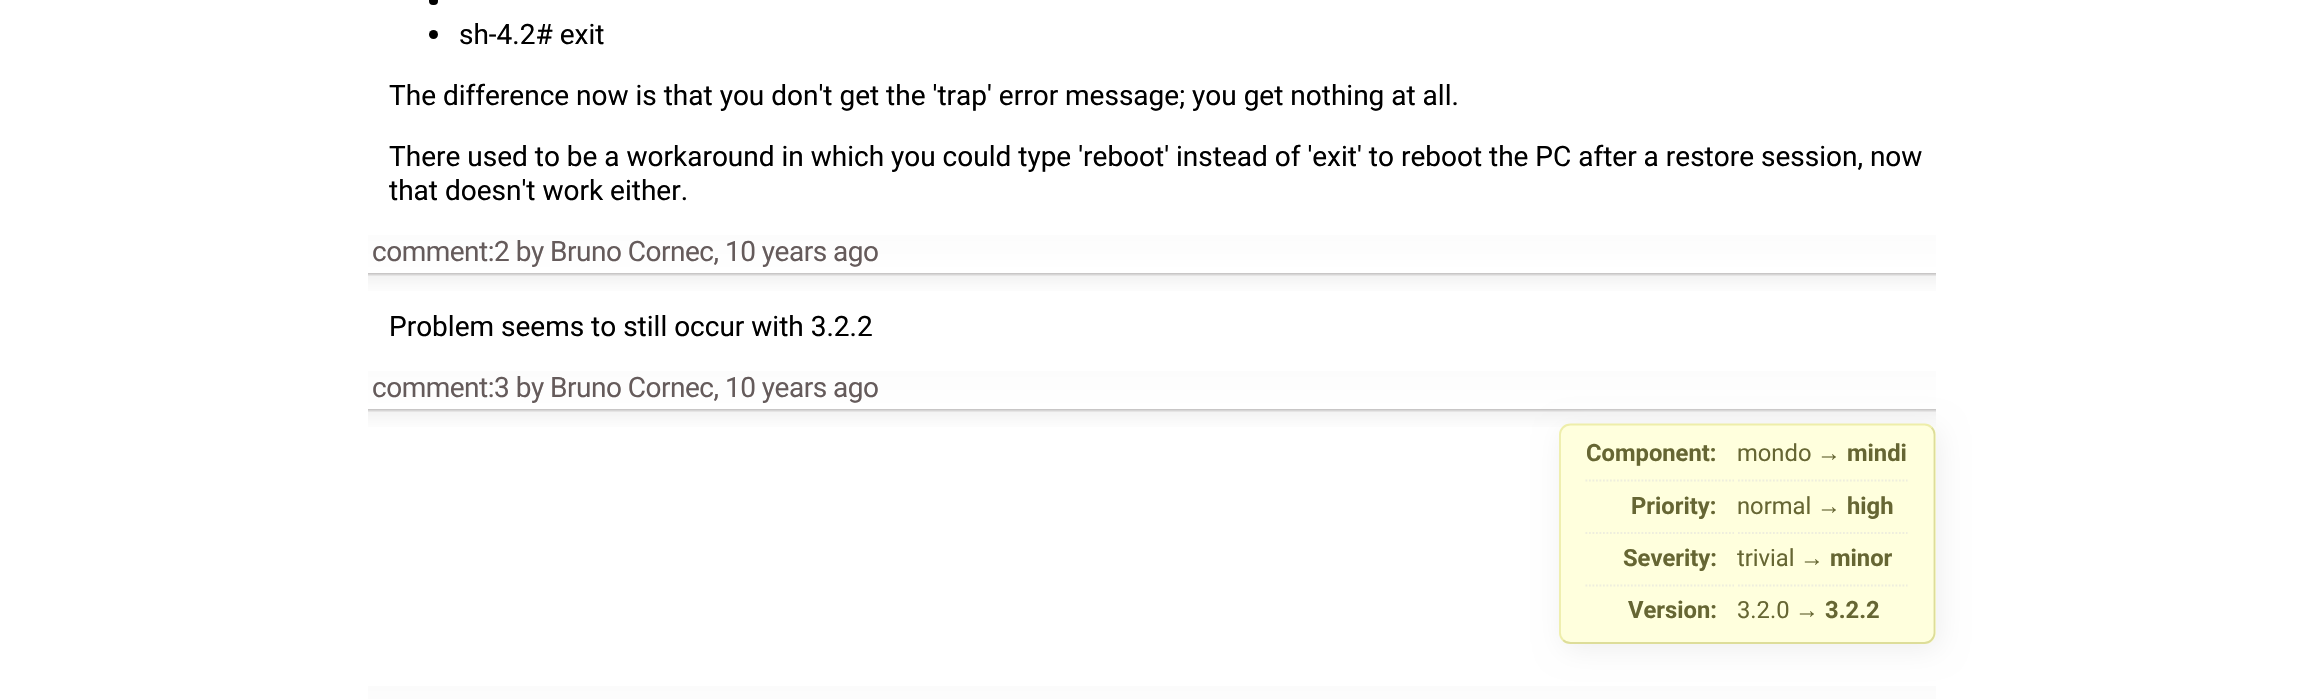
void draw(SkCanvas* canvas) {
	SkPaint fill;
	fill.setAntiAlias(true);
	auto makeFont = [&](const char* family, int weight, float size, bool italic = false) {
		SkFontStyle style(weight, SkFontStyle::kNormal_Width,
			italic ? SkFontStyle::kItalic_Slant : SkFontStyle::kUpright_Slant);
		SkFont result(fontMgr->matchFamilyStyle(family, style), size);
		result.setSubpixel(true);
		return result;
	};
	auto text = [&](const char* s, float x, float y, const SkFont& font) {
		canvas->drawString(s, x, y, font, fill);
	};
	auto spacedText = [&](const char* s, float x, float y, const SkFont& font, const SkPaint& ink, float letter, float word) {
		std::vector<SkGlyphID> glyphs(font.countText(s, strlen(s), SkTextEncoding::kUTF8));
		std::vector<float> xs(glyphs.size());
		font.textToGlyphs(s, strlen(s), SkTextEncoding::kUTF8, glyphs);
		font.getXPos(glyphs, xs, x);
		float extra = 0;
		for (size_t i = 0; i < glyphs.size(); i++) {
			xs[i] += extra;
			extra += letter + word * (glyphs[i] == font.unicharToGlyph(' '));
		}
		canvas->drawTextBlob(SkTextBlob::MakeFromPosHGlyphs(glyphs, xs, y, font), 0, 0, ink);
	};
	auto box = [&](float l, float t, float r, float b) {
		canvas->drawRect(SkRect::MakeLTRB(l, t, r, b), fill);
	};
	auto roundBox = [&](float l, float t, float r, float b, float radius) {
		canvas->drawRoundRect(SkRect::MakeLTRB(l, t, r, b), radius, radius, fill);
	};
	canvas->clear(0xFFFFFFFF);
	fill.setColor(0xFF000000);
	roundBox(429, -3, 438, 5, 4);
	canvas->drawCircle(433.5f, 34.5f, 4.5f, fill);
	{
		const SkColor colors[] = {0xFFFFFFFF, 0xFFFBFBFB, 0xFFF3F3F3, 0xFFC7C5C5, 0xFFFFFFFF, 0xFFFCFCFC};
		const float stops[] = {0, 0.14f, 0.32f, 0.37f, 0.37f, 1};
		const SkPoint ends[] = {{1152, 296}, {1152, 235}};
		fill.setShader(SkGradientShader::MakeLinear(ends, colors, stops, 6, SkTileMode::kClamp));
		fill.setAlpha(255);
	}
	box(368, 235, 1936, 291);
	{
		const SkColor colors[] = {0xFFFFFFFF, 0xFFFBFBFB, 0xFFF3F3F3, 0xFFC7C5C5, 0xFFFFFFFF, 0xFFFCFCFC};
		const float stops[] = {0, 0.14f, 0.32f, 0.37f, 0.37f, 1};
		const SkPoint ends[] = {{1152, 432}, {1152, 371}};
		fill.setShader(SkGradientShader::MakeLinear(ends, colors, stops, 6, SkTileMode::kClamp));
		fill.setAlpha(255);
	}
	box(368, 371, 1936, 427);
	{
		const SkColor colors[] = {0xFFFFFFFF, 0xFFFBFBFB, 0xFFF3F3F3, 0xFFC7C5C5, 0xFFFFFFFF, 0xFFFBFBFB};
		const float stops[] = {0, 0.14f, 0.32f, 0.37f, 0.37f, 1};
		const SkPoint ends[] = {{1152, 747}, {1152, 686}};
		fill.setShader(SkGradientShader::MakeLinear(ends, colors, stops, 6, SkTileMode::kClamp));
		fill.setAlpha(255);
	}
	box(368, 686, 1936, 699);
	fill.setShader(nullptr);
	fill.setColor(0xFFEEEEEE);
	fill.setMaskFilter(SkMaskFilter::MakeBlur(kNormal_SkBlurStyle, 14));
	canvas->drawRoundRect(SkRect::MakeLTRB(1563, 429, 1939, 649), 11, 11, fill);
	fill.setMaskFilter(nullptr);
	fill.setColor(0xFFFFFFDD);
	roundBox(1559, 424, 1936, 644, 11);
	fill.setStyle(SkPaint::kStroke_Style);
	fill.setStrokeWidth(1.8f);
	fill.setColor(0xFFDDDD99);
	canvas->drawPath(SkPathBuilder().moveTo(1931.5f, 427.5f).cubicTo(1933.5f, 429.5f, 1934.5f, 432, 1934.5f, 434.5f).lineTo(1934.5f, 633).cubicTo(1934.5f, 635.5f, 1933.5f, 638, 1931.5f, 640).cubicTo(1929.5f, 642, 1927, 643, 1924.5f, 643).lineTo(1570.5f, 643).cubicTo(1567.5f, 643, 1565, 642, 1563, 640).detach(), fill);
	fill.setColor(0xFFEEEEAA);
	canvas->drawPath(SkPathBuilder().moveTo(1563, 640).cubicTo(1561, 638, 1560, 635.5f, 1560, 633).lineTo(1560, 434.5f).cubicTo(1560, 432, 1561, 429.5f, 1563, 427.5f).cubicTo(1565, 425.5f, 1567.5f, 424.5f, 1570.5f, 424.5f).lineTo(1924.5f, 424.5f).cubicTo(1927, 424.5f, 1929.5f, 425.5f, 1931.5f, 427.5f).detach(), fill);
	fill.setColor(0xFFEEEEDD);
	fill.setPathEffect(SkDashPathEffect::Make({{1.75f, 1.75f}}, 0));
	canvas->drawPath(SkPathBuilder().moveTo(1585.5f, 480.5f).lineTo(1734, 480.5f).detach(), fill);
	fill.setPathEffect(nullptr);
	fill.setPathEffect(SkDashPathEffect::Make({{1.75f, 1.75f}}, 0));
	canvas->drawPath(SkPathBuilder().moveTo(1738, 480.5f).lineTo(1907.5f, 480.5f).detach(), fill);
	fill.setPathEffect(nullptr);
	fill.setPathEffect(SkDashPathEffect::Make({{1.75f, 1.75f}}, 0));
	canvas->drawPath(SkPathBuilder().moveTo(1585.5f, 533).lineTo(1734, 533).detach(), fill);
	fill.setPathEffect(nullptr);
	fill.setPathEffect(SkDashPathEffect::Make({{1.75f, 1.75f}}, 0));
	canvas->drawPath(SkPathBuilder().moveTo(1738, 533).lineTo(1907.5f, 533).detach(), fill);
	fill.setPathEffect(nullptr);
	fill.setPathEffect(SkDashPathEffect::Make({{1.75f, 1.75f}}, 0));
	canvas->drawPath(SkPathBuilder().moveTo(1585.5f, 585.5f).lineTo(1734, 585.5f).detach(), fill);
	fill.setPathEffect(nullptr);
	fill.setPathEffect(SkDashPathEffect::Make({{1.75f, 1.75f}}, 0));
	canvas->drawPath(SkPathBuilder().moveTo(1738, 585.5f).lineTo(1907.5f, 585.5f).detach(), fill);
	fill.setPathEffect(nullptr);
	auto font1 = makeFont("Roboto", 400, 28);
	fill.setStyle(SkPaint::kFill_Style);
	fill.setColor(0xFF000000);
	text("sh-4.2# exit", 459, 44, font1);
	text("The difference now is that you don't get the 'trap' error message; you get nothing at all.", 389, 105, font1);
	text("There used to be a workaround in which you could type 'reboot' instead of 'exit' to reboot the PC after a restore session, now", 389, 166, font1);
	text("that doesn't work either.", 389, 200, font1);
	fill.setColor(0xFF655B5B);
	spacedText("comment:2 by Bruno Cornec, 10 years ago", 372, 261, font1, fill, -0.5f, 0);
	fill.setColor(0xFF000000);
	text("Problem seems to still occur with 3.2.2", 389, 336, font1);
	fill.setColor(0xFF655B5B);
	spacedText("comment:3 by Bruno Cornec, 10 years ago", 372, 397, font1, fill, -0.5f, 0);
	auto font2 = makeFont("Roboto", 700, 23.75f);
	fill.setColor(0xFF666633);
	text("Component:", 1586, 461, font2);
	auto font3 = makeFont("Roboto", 400, 23.75f);
	text("mondo", 1737, 461, font3);
	auto font4 = makeFont("Liberation Sans", 400, 23.75f);
	text("→", 1817, 461, font4);
	text("mindi", 1847, 461, font2);
	text("Priority:", 1631, 514, font2);
	text("normal", 1737, 514, font3);
	text("→", 1817, 514, font4);
	text("high", 1847, 514, font2);
	text("Severity:", 1623, 566, font2);
	text("trivial", 1737, 566, font3);
	text("→", 1800, 566, font4);
	text("minor", 1830, 566, font2);
	text("Version:", 1628, 618, font2);
	text("3.2.0", 1737, 618, font3);
	text("→", 1795, 618, font4);
	text("3.2.2", 1825, 618, font2);
}
